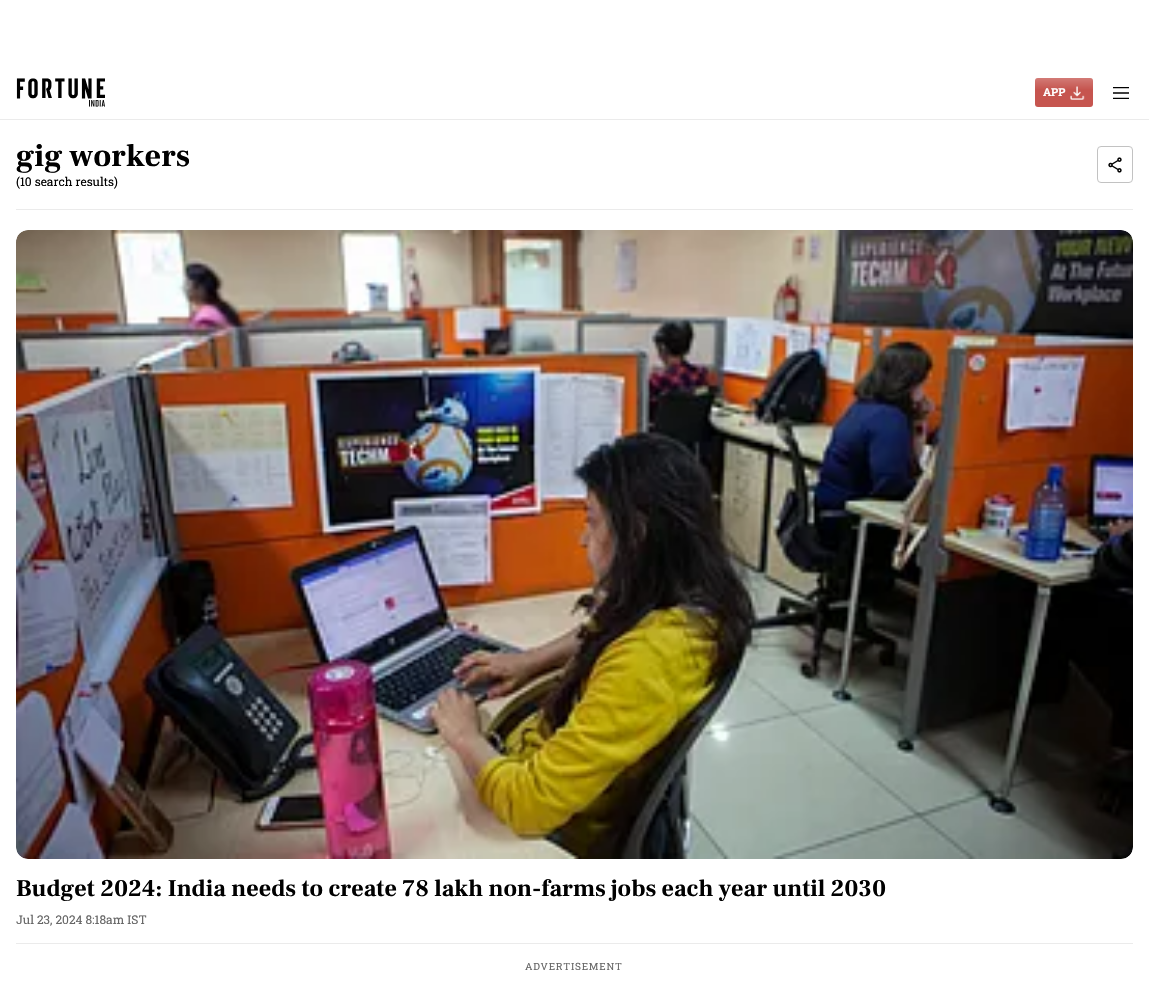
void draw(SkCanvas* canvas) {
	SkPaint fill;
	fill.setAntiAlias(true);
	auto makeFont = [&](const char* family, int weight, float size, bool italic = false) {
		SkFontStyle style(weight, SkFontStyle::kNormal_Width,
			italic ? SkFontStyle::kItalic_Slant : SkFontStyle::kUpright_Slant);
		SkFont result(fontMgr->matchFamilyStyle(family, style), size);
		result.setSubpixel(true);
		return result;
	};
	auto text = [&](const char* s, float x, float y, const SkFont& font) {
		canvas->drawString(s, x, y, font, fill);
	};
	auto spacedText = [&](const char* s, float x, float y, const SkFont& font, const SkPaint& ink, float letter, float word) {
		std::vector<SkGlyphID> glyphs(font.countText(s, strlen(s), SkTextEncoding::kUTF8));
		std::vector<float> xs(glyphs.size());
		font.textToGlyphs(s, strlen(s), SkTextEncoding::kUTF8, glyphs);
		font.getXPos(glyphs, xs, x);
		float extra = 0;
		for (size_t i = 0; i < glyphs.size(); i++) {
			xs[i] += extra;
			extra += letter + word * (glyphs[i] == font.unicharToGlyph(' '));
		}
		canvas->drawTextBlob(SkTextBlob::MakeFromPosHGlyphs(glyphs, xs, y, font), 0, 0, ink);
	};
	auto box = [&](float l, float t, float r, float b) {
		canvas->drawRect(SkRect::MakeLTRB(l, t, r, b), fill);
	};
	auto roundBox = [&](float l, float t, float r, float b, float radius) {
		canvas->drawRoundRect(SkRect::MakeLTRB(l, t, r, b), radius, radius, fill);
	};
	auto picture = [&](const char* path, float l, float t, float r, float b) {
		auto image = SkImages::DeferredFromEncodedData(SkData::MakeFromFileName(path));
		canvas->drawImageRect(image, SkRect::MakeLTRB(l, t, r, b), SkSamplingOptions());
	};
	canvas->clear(0xFFFFFFFF);
	fill.setColor(0xFFEBEBEB);
	box(0, 119, 1149, 120);
	picture("image0.png", 16, 78, 105, 107);
	fill.setColor(0xFFC6554F);
	roundBox(1035, 78, 1093, 107, 3);
	picture("image1.png", 1070, 86, 1085, 100);
	{
		const SkColor colors[] = {0x38FFFFFF, 0x00FFFFFF};
		const float stops[] = {0, 0.4f};
		const SkPoint ends[] = {{1064, 78}, {1064, 107}};
		fill.setShader(SkGradientShader::MakeLinear(ends, colors, stops, 2, SkTileMode::kClamp));
		fill.setAlpha(255);
	}
	roundBox(1035, 78, 1093, 107, 3);
	picture("image2.png", 1113, 87, 1129, 99);
	fill.setStyle(SkPaint::kStroke_Style);
	fill.setStrokeWidth(1);
	fill.setShader(nullptr);
	fill.setColor(0xFFC2C2C2);
	canvas->drawRoundRect(SkRect::MakeLTRB(1097.5f, 146.5f, 1132.5f, 182.5f), 3.5f, 3.5f, fill);
	picture("image3.png", 1108, 157, 1122, 173);
	fill.setStyle(SkPaint::kFill_Style);
	fill.setColor(0xFFEBEBEB);
	box(16, 209, 1133, 210);
	box(16, 943, 1133, 944);
	picture("image4.png", 16, 230, 1133, 858);
	picture("image5.png", 16, 230, 1133, 859);
	auto font1 = makeFont("Roboto Slab", 700, 11);
	fill.setColor(0xFFFFFFFF);
	text("APP", 1043, 96, font1);
	auto font2 = makeFont("Frank Ruhl Libre", 700, 32);
	fill.setColor(0xFF000000);
	text("gig workers", 16, 166, font2);
	auto font3 = makeFont("Roboto Slab", 400, 12);
	text("(10 search results)", 16, 186, font3);
	auto font4 = makeFont("Frank Ruhl Libre", 700, 24);
	text("Budget 2024: India needs to create 78 lakh non-farms jobs each year until 2030", 16, 896, font4);
	fill.setColor(0xFF666666);
	text("Jul 23, 2024 8:18am IST", 16, 924, font3);
	auto font5 = makeFont("Roboto Slab", 400, 10);
	spacedText("ADVERTISEMENT", 525, 970, font5, fill, 0.75f, 0);
}
